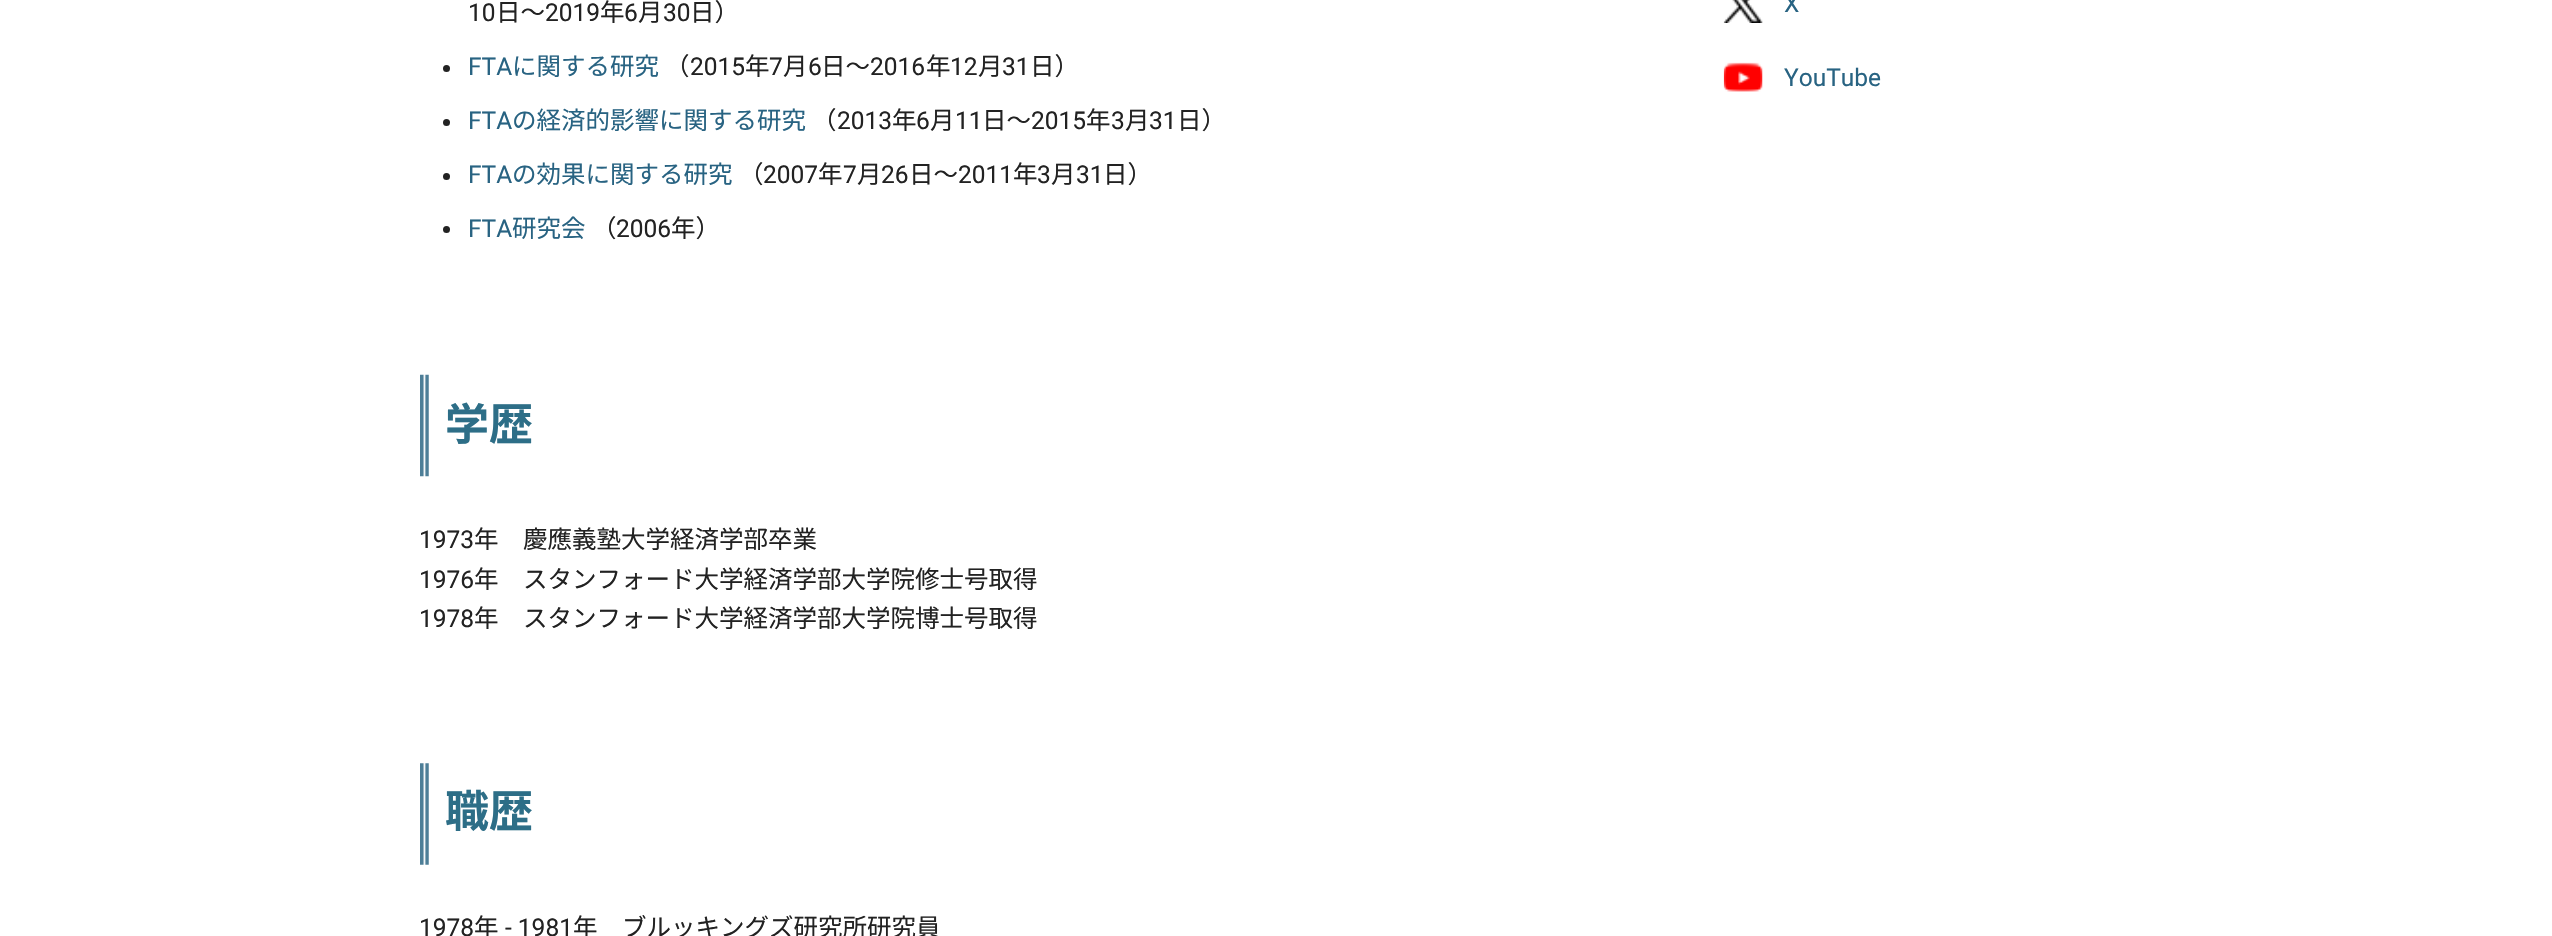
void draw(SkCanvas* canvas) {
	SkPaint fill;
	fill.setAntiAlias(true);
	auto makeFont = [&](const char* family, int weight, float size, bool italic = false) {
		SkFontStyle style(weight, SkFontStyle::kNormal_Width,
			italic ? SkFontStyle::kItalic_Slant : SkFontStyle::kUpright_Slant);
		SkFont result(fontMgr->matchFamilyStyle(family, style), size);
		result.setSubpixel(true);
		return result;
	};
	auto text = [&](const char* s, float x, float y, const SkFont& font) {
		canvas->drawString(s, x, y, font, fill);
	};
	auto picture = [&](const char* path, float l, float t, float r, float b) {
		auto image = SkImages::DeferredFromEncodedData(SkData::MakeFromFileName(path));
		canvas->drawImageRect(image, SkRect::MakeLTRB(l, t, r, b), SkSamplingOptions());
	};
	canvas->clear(0xFFFFFFFF);
	fill.setColor(0xFF222222);
	canvas->drawCircle(446.5f, 68.5f, 3.5f, fill);
	canvas->drawCircle(446.5f, 122.5f, 3.5f, fill);
	canvas->drawCircle(446.5f, 176.5f, 3.5f, fill);
	canvas->drawCircle(446.5f, 229.5f, 3.5f, fill);
	picture("image0.png", 420, 374, 429, 477);
	picture("image1.png", 420, 763, 429, 865);
	picture("image2.png", 1723, 0, 1763, 23);
	picture("image3.png", 1723, 62, 1763, 92);
	auto font1 = makeFont("Roboto", 400, 24.5f);
	text("10", 468, 21, font1);
	auto font2 = makeFont("Noto Sans JP", 400, 24.5f);
	text("日〜", 496, 21, font2);
	text("2019", 545, 21, font1);
	text("年", 600, 21, font2);
	text("6", 624, 21, font1);
	text("月", 638, 21, font2);
	text("30", 663, 21, font1);
	text("日）", 690, 21, font2);
	fill.setColor(0xFF286382);
	text("FTA", 468, 75, font1);
	text("に関する研究", 512, 75, font2);
	fill.setColor(0xFF222222);
	text("（", 665, 75, font2);
	text("2015", 690, 75, font1);
	text("年", 745, 75, font2);
	text("7", 769, 75, font1);
	text("月", 783, 75, font2);
	text("6", 808, 75, font1);
	text("日〜", 821, 75, font2);
	text("2016", 870, 75, font1);
	text("年", 926, 75, font2);
	text("12", 950, 75, font1);
	text("月", 978, 75, font2);
	text("31", 1002, 75, font1);
	text("日）", 1030, 75, font2);
	fill.setColor(0xFF286382);
	text("FTA", 468, 129, font1);
	text("の経済的影響に関する研究", 512, 129, font2);
	fill.setColor(0xFF222222);
	text("（", 812, 129, font2);
	text("2013", 837, 129, font1);
	text("年", 892, 129, font2);
	text("6", 916, 129, font1);
	text("月", 930, 129, font2);
	text("11", 955, 129, font1);
	text("日〜", 982, 129, font2);
	text("2015", 1031, 129, font1);
	text("年", 1086, 129, font2);
	text("3", 1111, 129, font1);
	text("月", 1125, 129, font2);
	text("31", 1149, 129, font1);
	text("日）", 1177, 129, font2);
	fill.setColor(0xFF286382);
	text("FTA", 468, 183, font1);
	text("の効果に関する研究", 512, 183, font2);
	fill.setColor(0xFF222222);
	text("（", 739, 183, font2);
	text("2007", 763, 183, font1);
	text("年", 818, 183, font2);
	text("7", 843, 183, font1);
	text("月", 857, 183, font2);
	text("26", 881, 183, font1);
	text("日〜", 909, 183, font2);
	text("2011", 958, 183, font1);
	text("年", 1013, 183, font2);
	text("3", 1037, 183, font1);
	text("月", 1051, 183, font2);
	text("31", 1076, 183, font1);
	text("日）", 1103, 183, font2);
	fill.setColor(0xFF286382);
	text("FTA", 468, 237, font1);
	text("研究会", 512, 237, font2);
	fill.setColor(0xFF222222);
	text("（", 592, 237, font2);
	text("2006", 616, 237, font1);
	text("年）", 671, 237, font2);
	auto font3 = makeFont("Noto Sans JP", 700, 44);
	fill.setColor(0xFF2D6E87);
	text("学歴", 445, 440, font3);
	fill.setColor(0xFF222222);
	text("1973", 419, 548, font1);
	text("年　慶應義塾大学経済学部卒業", 474, 548, font2);
	text("1976", 419, 588, font1);
	text("年　スタンフォード大学経済学部大学院修士号取得", 474, 588, font2);
	text("1978", 419, 627, font1);
	text("年　スタンフォード大学経済学部大学院博士号取得", 474, 627, font2);
	fill.setColor(0xFF2D6E87);
	text("職歴", 445, 827, font3);
	fill.setColor(0xFF222222);
	text("1978", 419, 936, font1);
	text("年", 474, 936, font2);
	text("- 1981", 505, 936, font1);
	text("年　ブルッキングズ研究所研究員", 573, 936, font2);
	fill.setColor(0xFF286382);
	text("X", 1784, 12, font1);
	text("YouTube", 1784, 86, font1);
}
